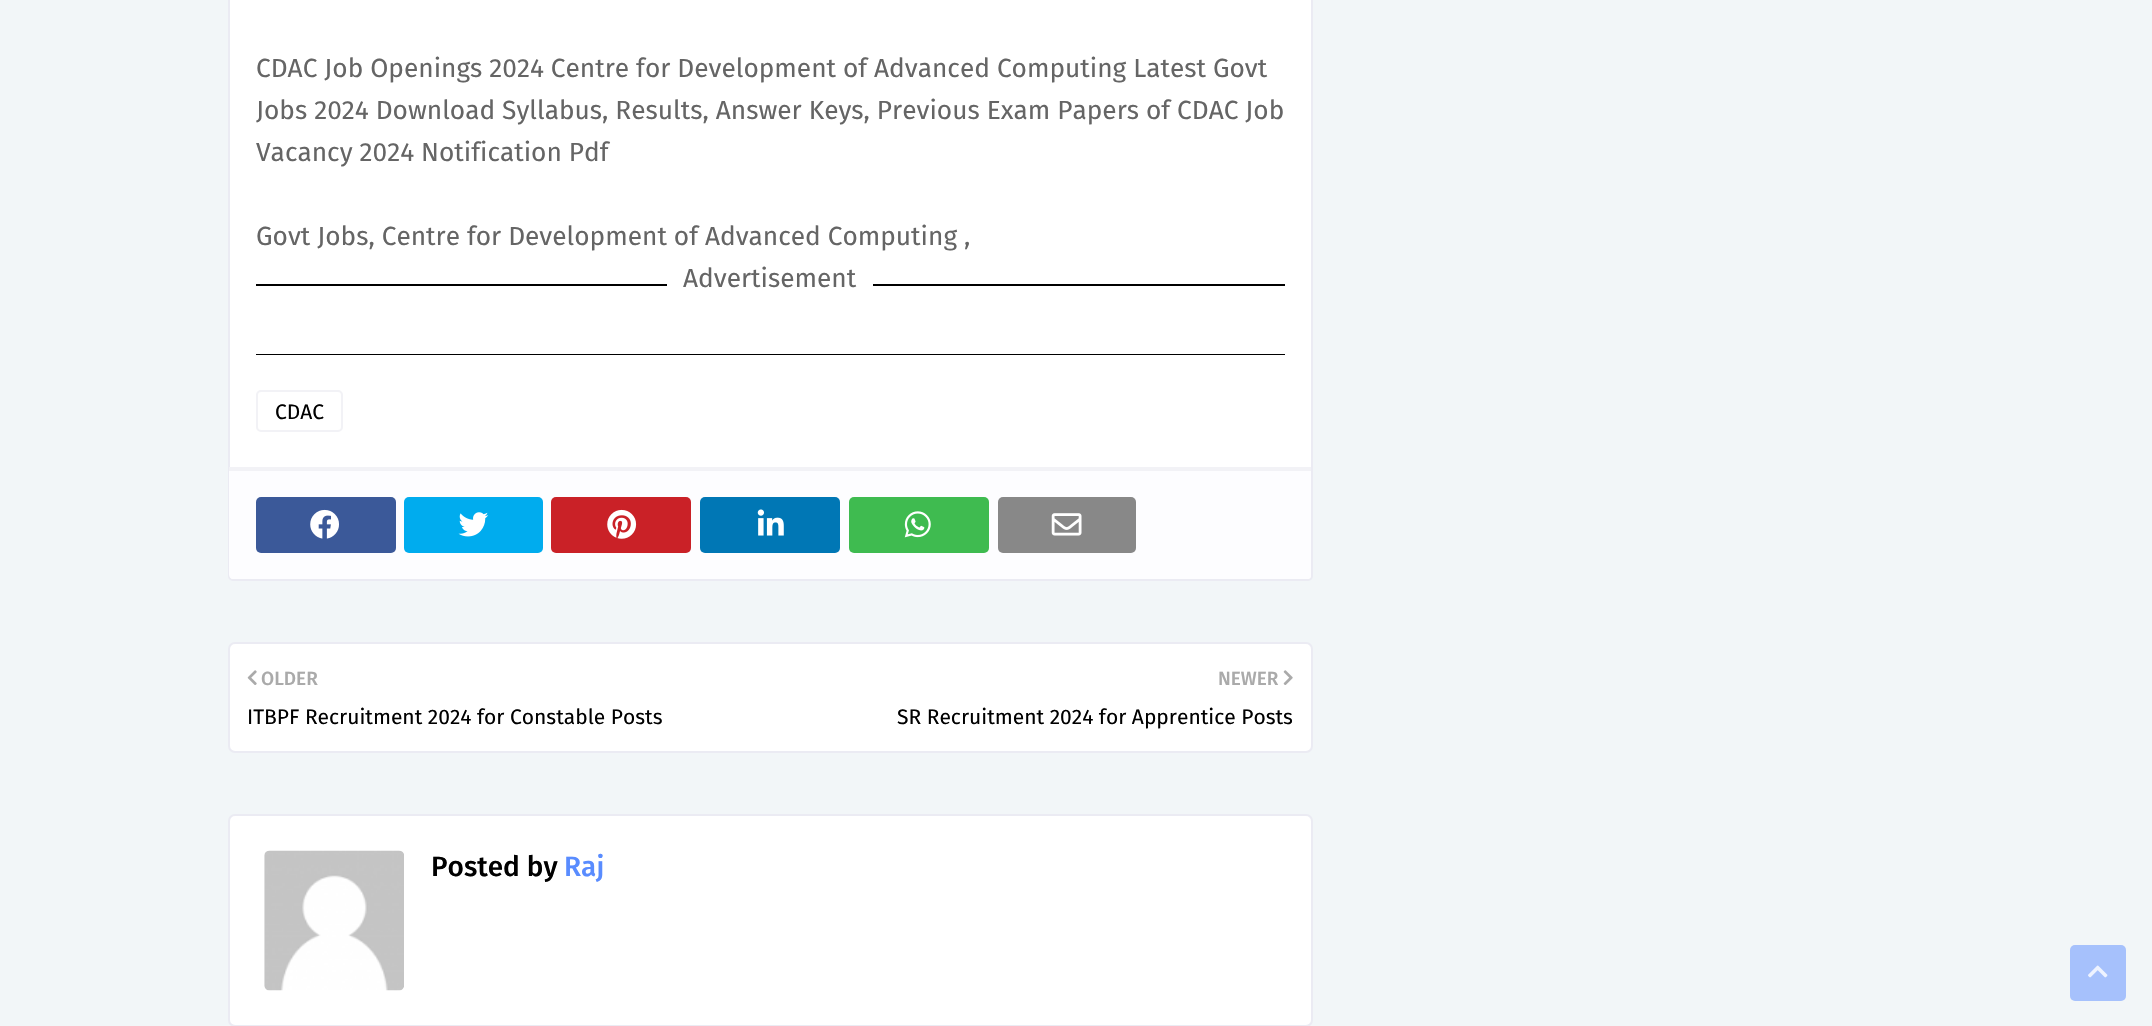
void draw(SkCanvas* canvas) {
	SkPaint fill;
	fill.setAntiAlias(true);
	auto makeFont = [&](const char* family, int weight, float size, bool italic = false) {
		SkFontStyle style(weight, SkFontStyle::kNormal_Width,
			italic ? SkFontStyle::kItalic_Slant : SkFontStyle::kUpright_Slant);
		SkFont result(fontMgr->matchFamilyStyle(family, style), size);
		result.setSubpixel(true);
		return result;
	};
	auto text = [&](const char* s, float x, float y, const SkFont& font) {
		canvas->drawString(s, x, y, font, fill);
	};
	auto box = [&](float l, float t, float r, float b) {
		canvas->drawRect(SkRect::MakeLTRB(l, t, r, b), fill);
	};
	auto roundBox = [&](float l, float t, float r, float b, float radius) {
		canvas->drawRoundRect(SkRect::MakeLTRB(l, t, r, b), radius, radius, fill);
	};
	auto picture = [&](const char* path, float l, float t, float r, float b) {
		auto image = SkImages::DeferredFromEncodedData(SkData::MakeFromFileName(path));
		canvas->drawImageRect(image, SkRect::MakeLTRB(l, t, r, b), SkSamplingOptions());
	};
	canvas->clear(0xFFF2F6F8);
	fill.setColor(0xFFFFFFFF);
	canvas->drawRoundRect(SkRect::MakeLTRB(229, -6, 1312, 580), 4, 4, fill);
	fill.setStyle(SkPaint::kStroke_Style);
	fill.setStrokeWidth(2);
	fill.setColor(0xFFEBEBF3);
	canvas->drawRoundRect(SkRect::MakeLTRB(229, -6, 1312, 580), 4, 4, fill);
	fill.setStyle(SkPaint::kFill_Style);
	fill.setColor(0xFF000000);
	box(256, 284, 1285, 286);
	fill.setColor(0xFFFFFFFF);
	box(667, 284, 873, 286);
	fill.setColor(0xFF000000);
	box(256, 354, 1285, 355);
	fill.setStyle(SkPaint::kStroke_Style);
	fill.setColor(0xFFF2F2F6);
	canvas->drawRoundRect(SkRect::MakeLTRB(257, 391, 342, 431), 4, 4, fill);
	fill.setStyle(SkPaint::kFill_Style);
	fill.setColor(0xFFFDFDFF);
	canvas->drawPath(SkPathBuilder().moveTo(229, 467).lineTo(1311, 467).lineTo(1311, 575).cubicTo(1311, 577, 1309, 579, 1307, 579).lineTo(233, 579).cubicTo(231, 579, 229, 577, 229, 575).close().detach(), fill);
	fill.setColor(0xFFF2F2F6);
	box(229, 467, 1311, 471);
	fill.setColor(0xFF3B5999);
	roundBox(256, 497, 396, 553, 5);
	picture("image0.png", 310, 509, 339, 539);
	fill.setColor(0xFF00ACEE);
	roundBox(404, 497, 543, 553, 5);
	picture("image1.png", 458, 512, 489, 537);
	fill.setColor(0xFFCA2127);
	roundBox(551, 497, 691, 553, 5);
	picture("image2.png", 607, 509, 637, 539);
	fill.setColor(0xFF0077B5);
	roundBox(700, 497, 840, 553, 5);
	picture("image3.png", 757, 509, 784, 536);
	fill.setColor(0xFF3FBB50);
	roundBox(849, 497, 989, 553, 5);
	picture("image4.png", 904, 511, 931, 538);
	fill.setColor(0xFF888888);
	roundBox(998, 497, 1136, 553, 5);
	picture("image5.png", 1051, 513, 1082, 536);
	fill.setColor(0xFFFFFFFF);
	canvas->drawRoundRect(SkRect::MakeLTRB(229, 643, 1312, 752), 6, 6, fill);
	fill.setStyle(SkPaint::kStroke_Style);
	fill.setColor(0xFFEBEBF3);
	canvas->drawRoundRect(SkRect::MakeLTRB(229, 643, 1312, 752), 6, 6, fill);
	picture("image6.png", 247, 670, 257, 685);
	picture("image7.png", 1283, 670, 1293, 685);
	fill.setStyle(SkPaint::kFill_Style);
	fill.setColor(0xFFFFFFFF);
	canvas->drawRoundRect(SkRect::MakeLTRB(229, 815, 1312, 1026), 6, 6, fill);
	fill.setStyle(SkPaint::kStroke_Style);
	fill.setColor(0xFFEBEBF3);
	canvas->drawRoundRect(SkRect::MakeLTRB(229, 815, 1312, 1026), 6, 6, fill);
	picture("image8.png", 264, 850, 404, 991);
	fill.setStyle(SkPaint::kFill_Style);
	fill.setColor(0xFFA6C1FC);
	roundBox(2070, 945, 2126, 1001, 5);
	picture("image9.png", 2088, 965, 2108, 978);
	auto font1 = makeFont("Fira Sans", 400, 26.25f);
	fill.setColor(0xFF656565);
	text("CDAC Job Openings 2024 Centre for Development of Advanced Computing Latest Govt", 256, 77, font1);
	text("Jobs 2024 Download Syllabus, Results, Answer Keys, Previous Exam Papers of CDAC Job", 256, 119, font1);
	text("Vacancy 2024 Notification Pdf", 256, 161, font1);
	text("Govt Jobs, Centre for Development of Advanced Computing ,", 256, 245, font1);
	text("Advertisement", 683, 287, font1);
	auto font2 = makeFont("Fira Sans", 400, 21);
	fill.setColor(0xFF000000);
	text("CDAC", 275, 419, font2);
	auto font3 = makeFont("Fira Sans", 500, 19);
	fill.setColor(0xFFAAAAAA);
	text("OLDER", 261, 685, font3);
	fill.setColor(0xFF000000);
	text("ITBPF Recruitment 2024 for Constable Posts", 247, 724, font2);
	fill.setColor(0xFFAAAAAA);
	text("NEWER", 1218, 685, font3);
	fill.setColor(0xFF000000);
	text("SR Recruitment 2024 for Apprentice Posts", 897, 724, font2);
	auto font4 = makeFont("Fira Sans", 500, 28);
	text("Posted by", 431, 876, font4);
	fill.setColor(0xFF598CFF);
	text("Raj", 564, 876, font4);
}
